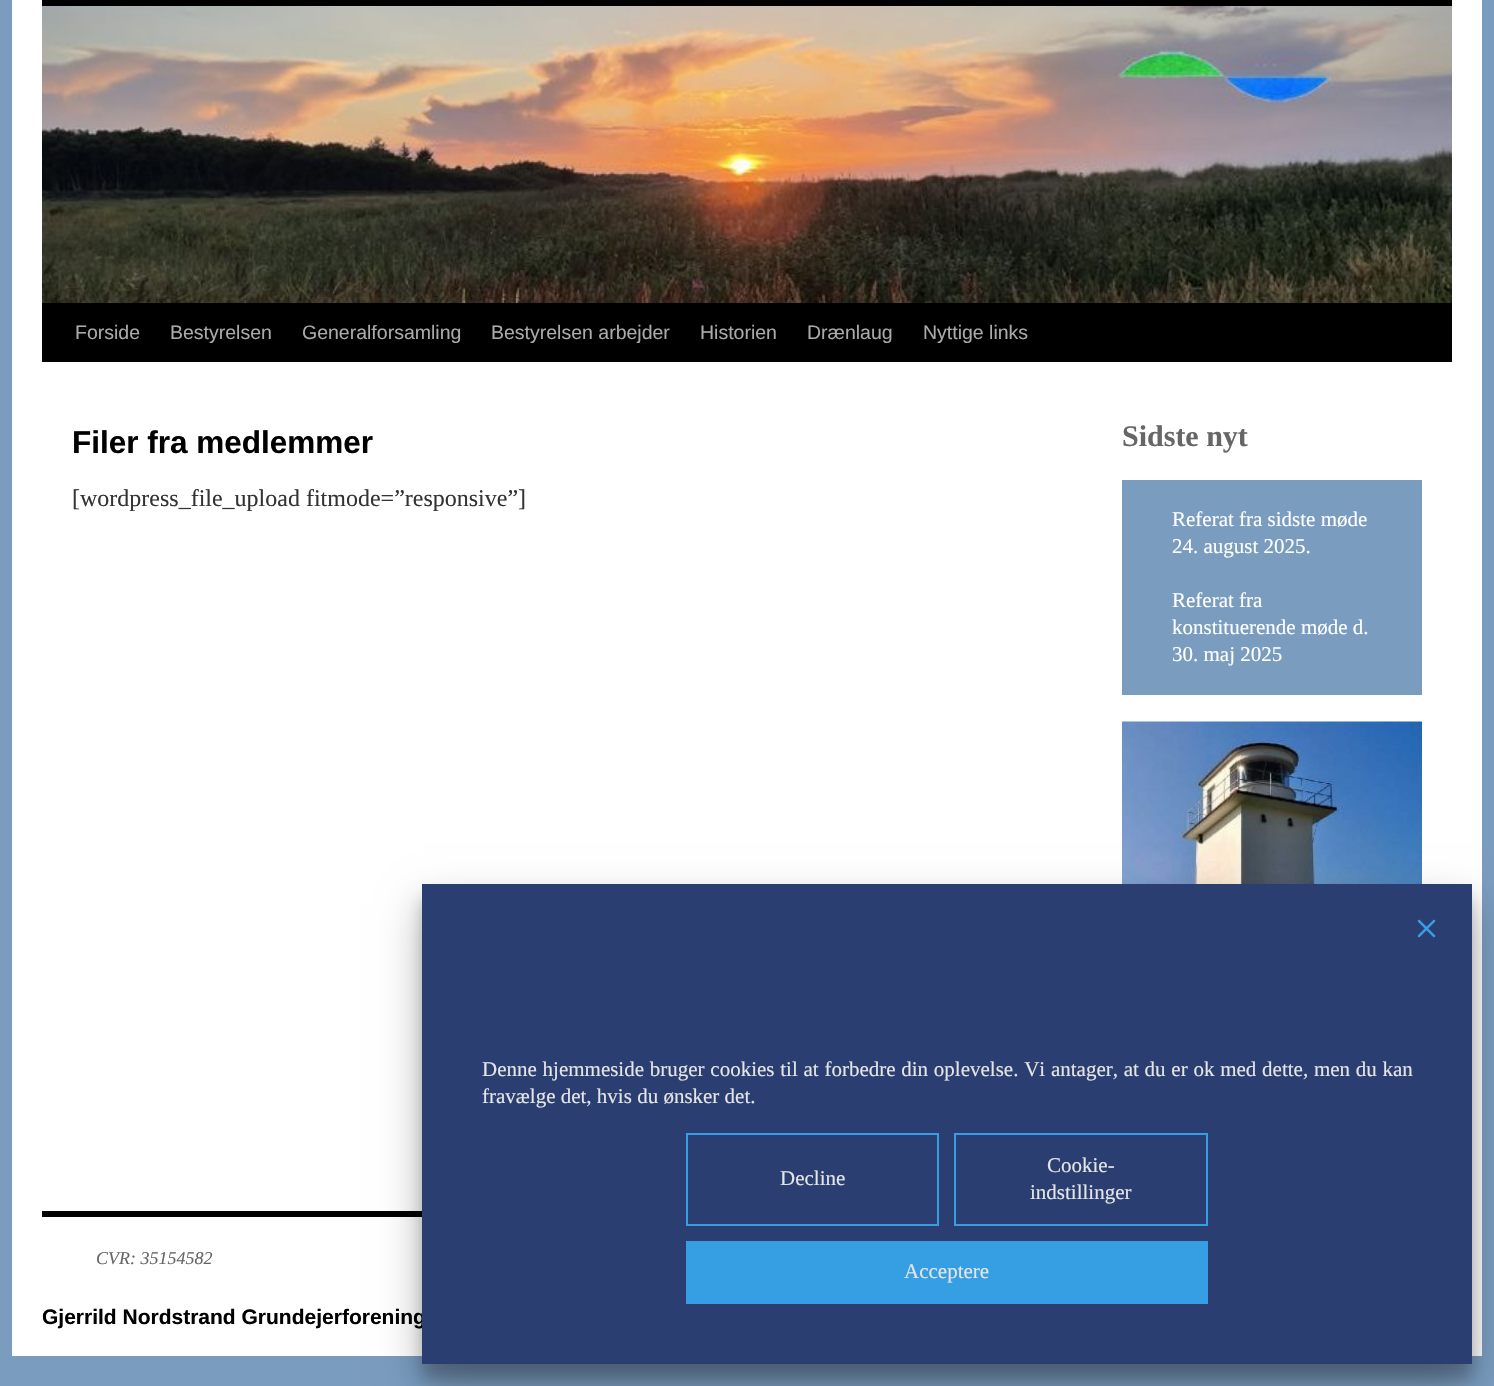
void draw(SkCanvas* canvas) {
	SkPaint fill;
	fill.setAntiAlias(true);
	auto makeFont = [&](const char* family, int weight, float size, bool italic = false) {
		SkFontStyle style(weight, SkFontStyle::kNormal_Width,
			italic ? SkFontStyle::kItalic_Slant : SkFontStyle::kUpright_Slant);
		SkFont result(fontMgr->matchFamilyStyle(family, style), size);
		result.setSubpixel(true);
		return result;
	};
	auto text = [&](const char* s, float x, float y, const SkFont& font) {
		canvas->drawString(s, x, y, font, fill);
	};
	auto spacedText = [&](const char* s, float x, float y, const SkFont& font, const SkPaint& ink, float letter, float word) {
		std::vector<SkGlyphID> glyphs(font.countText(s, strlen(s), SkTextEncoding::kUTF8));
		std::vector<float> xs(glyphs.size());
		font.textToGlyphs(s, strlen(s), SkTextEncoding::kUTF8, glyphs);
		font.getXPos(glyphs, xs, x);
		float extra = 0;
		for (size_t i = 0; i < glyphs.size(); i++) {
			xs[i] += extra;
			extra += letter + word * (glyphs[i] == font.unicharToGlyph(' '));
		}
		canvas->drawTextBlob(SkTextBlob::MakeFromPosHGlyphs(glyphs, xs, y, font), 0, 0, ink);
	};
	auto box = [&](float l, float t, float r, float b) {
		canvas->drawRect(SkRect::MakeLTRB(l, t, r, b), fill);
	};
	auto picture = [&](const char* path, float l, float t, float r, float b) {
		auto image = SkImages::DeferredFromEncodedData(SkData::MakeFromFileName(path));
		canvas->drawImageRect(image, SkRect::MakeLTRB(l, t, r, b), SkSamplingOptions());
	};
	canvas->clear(0xFF7A9CBF);
	fill.setColor(0xFFFFFFFF);
	box(12, 0, 1482, 1356);
	fill.setColor(0xFF000000);
	box(42, 0, 1452, 6);
	box(42, 303, 1452, 362);
	picture("image0.png", 42, 6, 1452, 303);
	fill.setColor(0xFF7A9CBF);
	box(1122, 480, 1422, 695);
	picture("image1.png", 1122, 721, 1422, 884);
	fill.setColor(0xFF000000);
	box(42, 1211, 422, 1217);
	fill.setColor(0x38000000);
	fill.setMaskFilter(SkMaskFilter::MakeBlur(kNormal_SkBlurStyle, 7.5f));
	canvas->drawRect(SkRect::MakeLTRB(422, 899, 1472, 1379), fill);
	fill.setMaskFilter(nullptr);
	fill.setColor(0x40000000);
	fill.setMaskFilter(SkMaskFilter::MakeBlur(kNormal_SkBlurStyle, 21));
	canvas->drawRect(SkRect::MakeLTRB(422, 905, 1472, 1385), fill);
	fill.setMaskFilter(nullptr);
	auto font1 = makeFont("Liberation Sans", 400, 19.5f);
	fill.setColor(0xFFAAAAAA);
	text("Forside", 75, 339, font1);
	text("Bestyrelsen", 170, 339, font1);
	text("Generalforsamling", 302, 339, font1);
	text("Bestyrelsen arbejder", 491, 339, font1);
	text("Historien", 700, 339, font1);
	text("Drænlaug", 807, 339, font1);
	text("Nyttige links", 923, 339, font1);
	auto font2 = makeFont("Liberation Sans", 700, 31.5f);
	fill.setColor(0xFF000000);
	text("Filer fra medlemmer", 72, 453, font2);
	auto font3 = makeFont("Liberation Serif", 400, 24);
	fill.setColor(0xFF333333);
	text("[wordpress_file_upload fitmode=”responsive”]", 72, 506, font3);
	auto font4 = makeFont("Liberation Serif", 700, 30);
	fill.setColor(0xFF666666);
	text("Sidste nyt", 1122, 446, font4);
	auto font5 = makeFont("Liberation Serif", 400, 21);
	fill.setColor(0xFFFFFFFF);
	text("Referat fra sidste møde", 1172, 526, font5);
	text("24. august 2025.", 1172, 553, font5);
	text("Referat fra", 1172, 607, font5);
	text("konstituerende møde d.", 1172, 634, font5);
	text("30. maj 2025", 1172, 661, font5);
	auto font6 = makeFont("Liberation Serif", 400, 18, true);
	fill.setColor(0xFF666666);
	text("CVR: 35154582", 96, 1264, font6);
	auto font7 = makeFont("Liberation Sans", 700, 21);
	fill.setColor(0xFF000000);
	text("Gjerrild Nordstrand Grundejerforening", 42, 1324, font7);
	fill.setColor(0xFF2A3E71);
	box(422, 884, 1472, 1364);
	picture("image2.png", 1417, 919, 1436, 938);
	fill.setColor(0xFFE5E5E5);
	spacedText("Denne hjemmeside bruger cookies til at forbedre din oplevelse. Vi antager, at du er ok med dette, men du kan", 482, 1076, font5, fill, 0, 0.5f);
	text("fravælge det, hvis du ønsker det.", 482, 1103, font5);
	fill.setStyle(SkPaint::kStroke_Style);
	fill.setStrokeWidth(2);
	fill.setColor(0xFF369EE3);
	canvas->drawRect(SkRect::MakeLTRB(687, 1134, 938, 1225), fill);
	fill.setStyle(SkPaint::kFill_Style);
	fill.setColor(0xFFE5E5E5);
	text("Decline", 780, 1185, font5);
	fill.setStyle(SkPaint::kStroke_Style);
	fill.setColor(0xFF369EE3);
	canvas->drawRect(SkRect::MakeLTRB(955, 1134, 1207, 1225), fill);
	fill.setStyle(SkPaint::kFill_Style);
	fill.setColor(0xFFE5E5E5);
	text("Cookie-", 1047, 1172, font5);
	text("indstillinger", 1030, 1199, font5);
	fill.setColor(0xFF369EE3);
	box(686, 1241, 1208, 1304);
	fill.setColor(0xFFE5E5E5);
	text("Acceptere", 904, 1278, font5);
}
